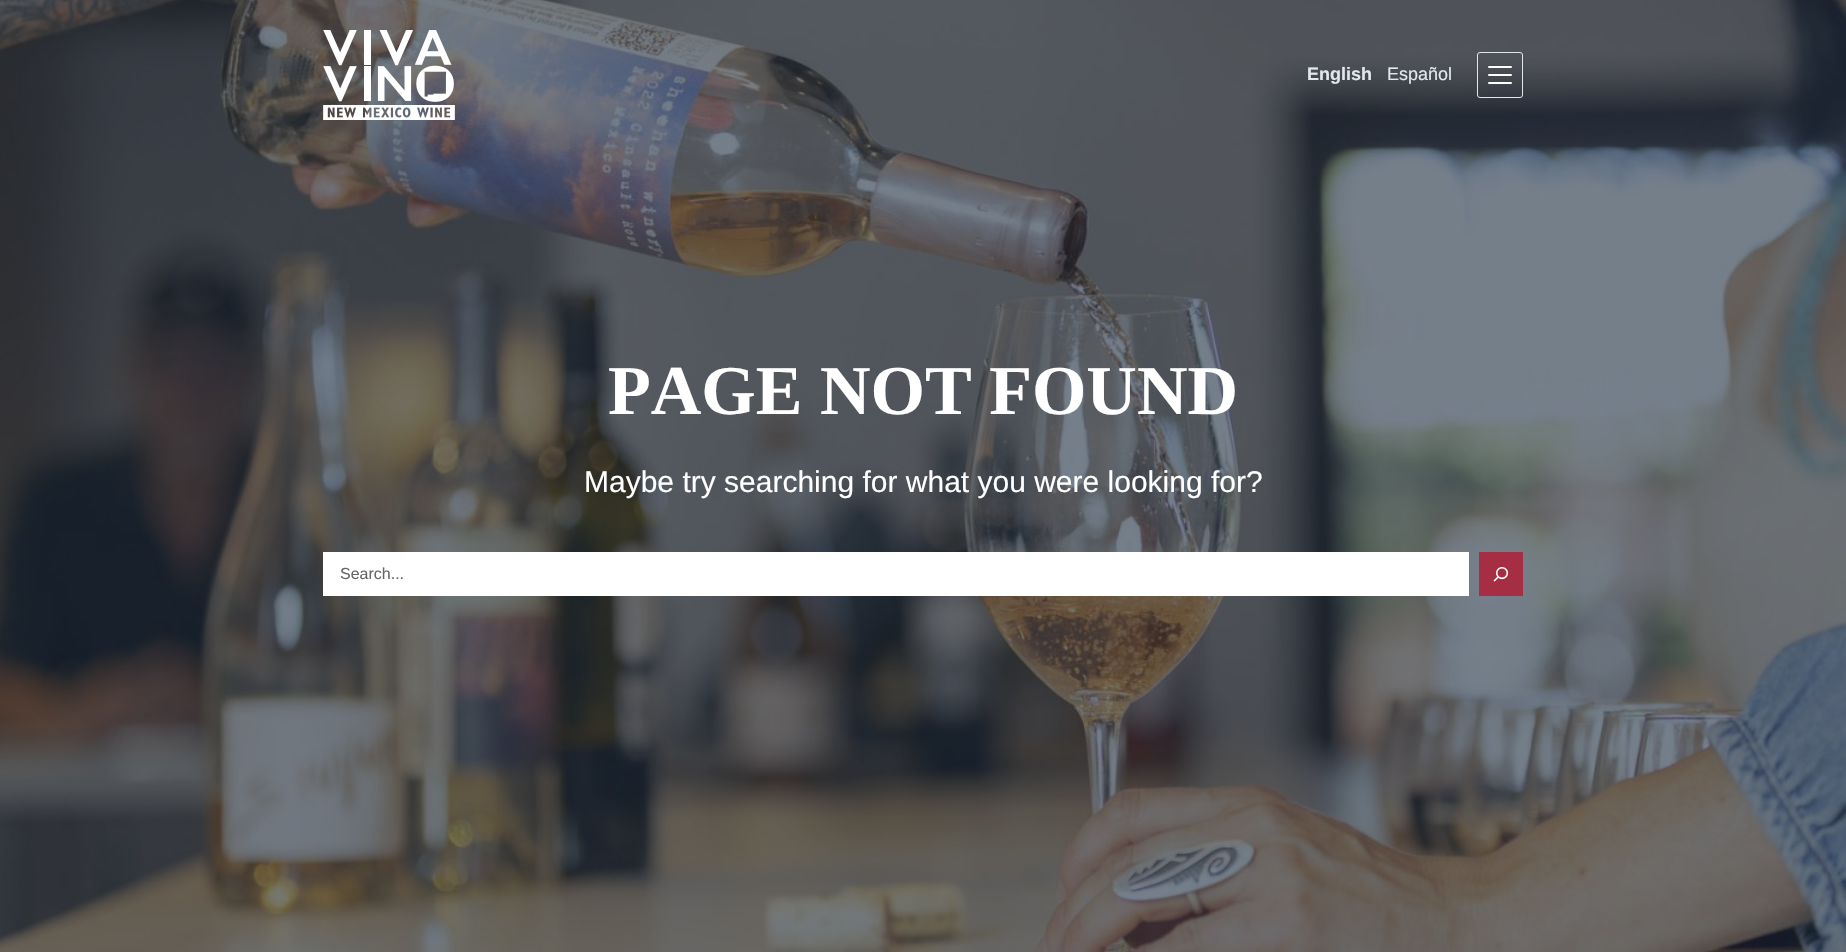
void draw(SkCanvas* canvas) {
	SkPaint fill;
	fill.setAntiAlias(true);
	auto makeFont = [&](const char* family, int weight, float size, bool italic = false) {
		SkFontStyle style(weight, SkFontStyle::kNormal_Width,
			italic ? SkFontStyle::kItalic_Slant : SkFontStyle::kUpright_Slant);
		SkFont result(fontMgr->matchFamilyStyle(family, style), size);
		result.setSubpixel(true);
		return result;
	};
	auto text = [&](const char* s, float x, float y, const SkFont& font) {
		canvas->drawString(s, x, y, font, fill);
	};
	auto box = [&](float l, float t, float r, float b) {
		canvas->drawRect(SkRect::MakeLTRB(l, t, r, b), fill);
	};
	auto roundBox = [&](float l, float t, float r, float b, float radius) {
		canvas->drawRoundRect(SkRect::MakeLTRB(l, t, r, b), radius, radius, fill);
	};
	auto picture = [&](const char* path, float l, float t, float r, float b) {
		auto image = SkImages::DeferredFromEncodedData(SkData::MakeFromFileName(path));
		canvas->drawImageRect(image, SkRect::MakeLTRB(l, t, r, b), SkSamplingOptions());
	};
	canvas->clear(0xFFFFFFFF);
	picture("image1.png", 0, 0, 1846, 952);
	picture("image0.png", 323, 30, 455, 120);
	fill.setStyle(SkPaint::kStroke_Style);
	fill.setStrokeWidth(1);
	fill.setColor(0xFFE1E8ED);
	canvas->drawRoundRect(SkRect::MakeLTRB(1477.5f, 52.5f, 1522.5f, 97.5f), 2.5f, 2.5f, fill);
	fill.setStyle(SkPaint::kFill_Style);
	fill.setColor(0xFFFFFFFF);
	roundBox(1488, 66, 1512, 68, 1);
	roundBox(1488, 74, 1512, 76, 1);
	roundBox(1488, 82, 1512, 84, 1);
	box(323, 552, 1469, 596);
	fill.setColor(0xFFA62E44);
	box(1479, 552, 1523, 596);
	picture("image2.png", 1493, 567, 1509, 582);
	auto font1 = makeFont("Liberation Sans", 700, 18);
	fill.setColor(0xFFE1E8ED);
	text("English", 1307, 80, font1);
	auto font2 = makeFont("Liberation Sans", 400, 18);
	text("Español", 1387, 80, font2);
	auto font3 = makeFont("Liberation Serif", 700, 70);
	fill.setColor(0xFFFFFFFF);
	text("PAGE NOT FOUND", 608, 414, font3);
	auto font4 = makeFont("Liberation Sans", 400, 30);
	text("Maybe try searching for what you were looking for?", 584, 492, font4);
	auto font5 = makeFont("Liberation Sans", 400, 16);
	fill.setColor(0xFF666666);
	text("Search...", 340, 579, font5);
}
